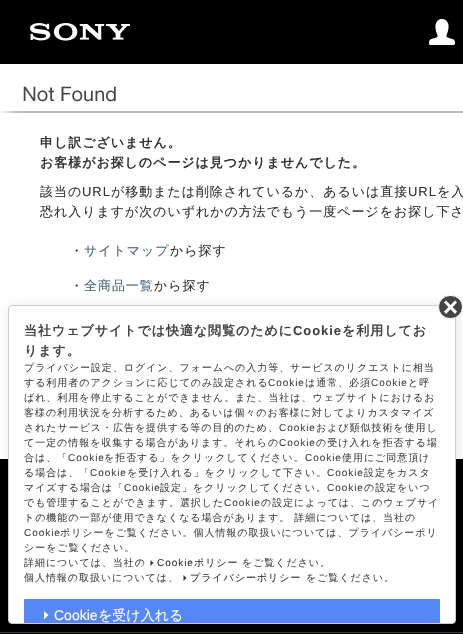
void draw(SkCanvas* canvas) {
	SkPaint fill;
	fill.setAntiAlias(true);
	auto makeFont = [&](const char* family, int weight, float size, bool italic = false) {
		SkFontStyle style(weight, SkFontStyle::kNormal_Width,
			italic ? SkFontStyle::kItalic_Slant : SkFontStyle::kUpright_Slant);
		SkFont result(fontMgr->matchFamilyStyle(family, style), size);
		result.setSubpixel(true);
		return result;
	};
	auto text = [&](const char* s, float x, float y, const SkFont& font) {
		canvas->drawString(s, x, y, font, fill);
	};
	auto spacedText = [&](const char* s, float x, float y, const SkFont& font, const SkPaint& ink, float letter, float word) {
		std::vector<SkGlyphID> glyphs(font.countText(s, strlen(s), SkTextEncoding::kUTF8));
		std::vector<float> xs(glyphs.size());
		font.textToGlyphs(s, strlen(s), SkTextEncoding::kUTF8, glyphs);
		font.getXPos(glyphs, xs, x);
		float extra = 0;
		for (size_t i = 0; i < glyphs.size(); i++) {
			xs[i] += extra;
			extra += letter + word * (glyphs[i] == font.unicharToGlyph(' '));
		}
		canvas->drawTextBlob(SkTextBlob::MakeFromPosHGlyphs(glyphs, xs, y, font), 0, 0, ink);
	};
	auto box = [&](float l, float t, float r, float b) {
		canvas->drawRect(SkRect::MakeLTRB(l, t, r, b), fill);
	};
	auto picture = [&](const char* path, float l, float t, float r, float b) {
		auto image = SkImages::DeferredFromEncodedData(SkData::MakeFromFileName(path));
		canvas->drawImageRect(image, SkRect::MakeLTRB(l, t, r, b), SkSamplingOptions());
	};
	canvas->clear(0xFFFFFFFF);
	fill.setColor(0xFF000000);
	box(0, 0, 463, 64);
	picture("image0.png", 30, 23, 130, 41);
	picture("image1.png", 429, 19, 455, 45);
	picture("image2.png", 0, 86, 463, 113);
	box(0, 459, 463, 634);
	fill.setColor(0xFF3C3C42);
	box(0, 632, 463, 633);
	fill.setColor(0x1A000000);
	fill.setMaskFilter(SkMaskFilter::MakeBlur(kNormal_SkBlurStyle, 6));
	canvas->drawRoundRect(SkRect::MakeLTRB(10, 307, 458, 626), 4, 4, fill);
	fill.setMaskFilter(nullptr);
	fill.setColor(0xFFFFFFFF);
	canvas->drawRoundRect(SkRect::MakeLTRB(8.5f, 305.5f, 455.5f, 623.5f), 3.5f, 3.5f, fill);
	fill.setStyle(SkPaint::kStroke_Style);
	fill.setStrokeWidth(1);
	fill.setColor(0xFFCCCCCC);
	canvas->drawRoundRect(SkRect::MakeLTRB(8.5f, 305.5f, 455.5f, 623.5f), 3.5f, 3.5f, fill);
	fill.setStyle(SkPaint::kFill_Style);
	fill.setColor(0xFF444444);
	canvas->drawRoundRect(SkRect::MakeLTRB(438.5f, 295.5f, 462.5f, 318.5f), 11.5f, 11.5f, fill);
	fill.setStyle(SkPaint::kStroke_Style);
	fill.setColor(0xFFFFFFFF);
	canvas->drawRoundRect(SkRect::MakeLTRB(438.5f, 295.5f, 462.5f, 318.5f), 11.5f, 11.5f, fill);
	fill.setStyle(SkPaint::kFill_Style);
	canvas->drawPath(SkPathBuilder().moveTo(444, 311.5f).lineTo(455, 300.5f).lineTo(457, 302.5f).lineTo(446, 314).close().detach(), fill);
	canvas->drawPath(SkPathBuilder().moveTo(446, 300.5f).lineTo(457, 311.5f).lineTo(455, 314).lineTo(444, 302.5f).close().detach(), fill);
	fill.setColor(0xFF2F353D);
	canvas->drawPath(SkPathBuilder().moveTo(150.5f, 560).lineTo(153.5f, 563).lineTo(150.5f, 566).close().detach(), fill);
	canvas->drawPath(SkPathBuilder().moveTo(183.5f, 575).lineTo(186.5f, 578).lineTo(183.5f, 581).close().detach(), fill);
	fill.setColor(0xFF5787F4);
	canvas->drawPath(SkPathBuilder().moveTo(25, 599).lineTo(439, 599).cubicTo(439.5f, 599, 440, 599.5f, 440, 600).lineTo(440, 623).lineTo(24, 623).lineTo(24, 600).cubicTo(24, 599.5f, 24.5f, 599, 25, 599).close().detach(), fill);
	fill.setColor(0xFFFFFFFF);
	canvas->drawPath(SkPathBuilder().moveTo(44, 611).lineTo(48.5f, 615).lineTo(44, 619.5f).close().detach(), fill);
	auto font1 = makeFont("WenQuanYi Zen Hei", 700, 13);
	fill.setColor(0xFF333333);
	spacedText("申し訳ございません。", 40, 147, font1, fill, 0.95f, 0);
	spacedText("お客様がお探しのページは見つかりませんでした。", 40, 167, font1, fill, 0.95f, 0);
	auto font2 = makeFont("WenQuanYi Zen Hei", 500, 13);
	spacedText("該当の", 40, 196, font2, fill, 0.95f, 0);
	auto font3 = makeFont("Liberation Sans", 400, 13);
	spacedText("URL", 82, 196, font3, fill, 0.95f, 0);
	spacedText("が移動または削除されているか、あるいは直接", 111, 196, font2, fill, 0.95f, 0);
	spacedText("URL", 408, 196, font3, fill, 0.95f, 0);
	spacedText("を入", 437, 196, font2, fill, 0.95f, 0);
	spacedText("恐れ入りますが次のいずれかの方法でもう一度ページをお探し下さ", 40, 216, font2, fill, 0.95f, 0);
	spacedText("・", 70, 255, font2, fill, 0.95f, 0);
	fill.setColor(0xFF43677E);
	spacedText("サイトマップ", 84, 255, font2, fill, 0.95f, 0);
	fill.setColor(0xFF333333);
	spacedText("から探す", 170, 255, font2, fill, 0.95f, 0);
	spacedText("・", 70, 290, font2, fill, 0.95f, 0);
	fill.setColor(0xFF43677E);
	spacedText("全商品一覧", 84, 290, font2, fill, 0.95f, 0);
	fill.setColor(0xFF333333);
	spacedText("から探す", 154, 290, font2, fill, 0.95f, 0);
	fill.setColor(0xFF444444);
	spacedText("当社ウェブサイトでは快適な閲覧のために", 24, 335, font1, fill, 0.95f, 0);
	auto font4 = makeFont("Liberation Sans", 700, 13);
	spacedText("Cookie", 293, 335, font4, fill, 0.95f, 0);
	spacedText("を利用してお", 342, 335, font1, fill, 0.95f, 0);
	spacedText("ります。", 24, 355, font1, fill, 0.95f, 0);
	auto font5 = makeFont("WenQuanYi Zen Hei", 500, 10);
	spacedText("プライバシー設定、ログイン、フォームへの入力等、サービスのリクエストに相当", 24, 371, font5, fill, 0.95f, 0);
	spacedText("する利用者のアクションに応じてのみ設定される", 24, 386, font5, fill, 0.95f, 0);
	auto font6 = makeFont("Liberation Sans", 400, 10);
	spacedText("Cookie", 268, 386, font6, fill, 0.95f, 0);
	spacedText("は通常、必須", 305, 386, font5, fill, 0.95f, 0);
	spacedText("Cookie", 371, 386, font6, fill, 0.95f, 0);
	spacedText("と呼", 408, 386, font5, fill, 0.95f, 0);
	spacedText("ばれ、利用を停止することができません。また、当社は、ウェブサイトにおけるお", 24, 401, font5, fill, 0.95f, 0);
	spacedText("客様の利用状況を分析するため、あるいは個々のお客様に対してよりカスタマイズ", 24, 416, font5, fill, 0.95f, 0);
	spacedText("されたサービス・広告を提供する等の目的のため、", 24, 431, font5, fill, 0.95f, 0);
	spacedText("Cookie", 279, 431, font6, fill, 0.95f, 0);
	spacedText("および類似技術を使用し", 316, 431, font5, fill, 0.95f, 0);
	spacedText("て一定の情報を収集する場合があります。それらの", 24, 446, font5, fill, 0.95f, 0);
	spacedText("Cookie", 279, 446, font6, fill, 0.95f, 0);
	spacedText("の受け入れを拒否する場", 316, 446, font5, fill, 0.95f, 0);
	spacedText("合は、「", 24, 461, font5, fill, 0.95f, 0);
	spacedText("Cookie", 68, 461, font6, fill, 0.95f, 0);
	spacedText("を拒否する」をクリックしてください。", 104, 461, font5, fill, 0.95f, 0);
	spacedText("Cookie", 305, 461, font6, fill, 0.95f, 0);
	spacedText("使用にご同意頂け", 342, 461, font5, fill, 0.95f, 0);
	spacedText("る場合は、「", 24, 476, font5, fill, 0.95f, 0);
	spacedText("Cookie", 90, 476, font6, fill, 0.95f, 0);
	spacedText("を受け入れる」をクリックして下さい。", 127, 476, font5, fill, 0.95f, 0);
	spacedText("Cookie", 327, 476, font6, fill, 0.95f, 0);
	spacedText("設定をカスタ", 364, 476, font5, fill, 0.95f, 0);
	spacedText("マイズする場合は「", 24, 491, font5, fill, 0.95f, 0);
	spacedText("Cookie", 124, 491, font6, fill, 0.95f, 0);
	spacedText("設定」をクリックしてください。", 160, 491, font5, fill, 0.95f, 0);
	spacedText("Cookie", 327, 491, font6, fill, 0.95f, 0);
	spacedText("の設定をいつ", 364, 491, font5, fill, 0.95f, 0);
	spacedText("でも管理することができます。選択した", 24, 506, font5, fill, 0.95f, 0);
	spacedText("Cookie", 224, 506, font6, fill, 0.95f, 0);
	spacedText("の設定によっては、このウェブサイ", 261, 506, font5, fill, 0.95f, 0);
	spacedText("トの機能の一部が使用できなくなる場合があります。 詳細については、当社の", 24, 521, font5, fill, 0.95f, 0);
	spacedText("Cookie", 24, 536, font6, fill, 0.95f, 0);
	spacedText("ポリシーをご覧ください。個人情報の取扱いについては、プライバシーポリ", 60, 536, font5, fill, 0.95f, 0);
	spacedText("シーをご覧ください。", 24, 551, font5, fill, 0.95f, 0);
	spacedText("詳細については、当社の", 24, 566, font5, fill, 0.95f, 0);
	fill.setColor(0xFF2F353D);
	spacedText("Cookie", 157, 566, font6, fill, 0.95f, 0);
	spacedText("ポリシー", 194, 566, font5, fill, 0.95f, 0);
	fill.setColor(0xFF444444);
	spacedText("をご覧ください。", 242, 566, font5, fill, 0.95f, 0);
	spacedText("個人情報の取扱いについては、", 24, 581, font5, fill, 0.95f, 0);
	fill.setColor(0xFF2F353D);
	spacedText("プライバシーポリシー", 190, 581, font5, fill, 0.95f, 0);
	fill.setColor(0xFF444444);
	spacedText("をご覧ください。", 306, 581, font5, fill, 0.95f, 0);
	auto font7 = makeFont("Liberation Sans", 400, 14);
	fill.setColor(0xFFFFFFFF);
	text("Cookie", 54, 620, font7);
	auto font8 = makeFont("WenQuanYi Zen Hei", 500, 14);
	text("を受け入れる", 98, 620, font8);
}
